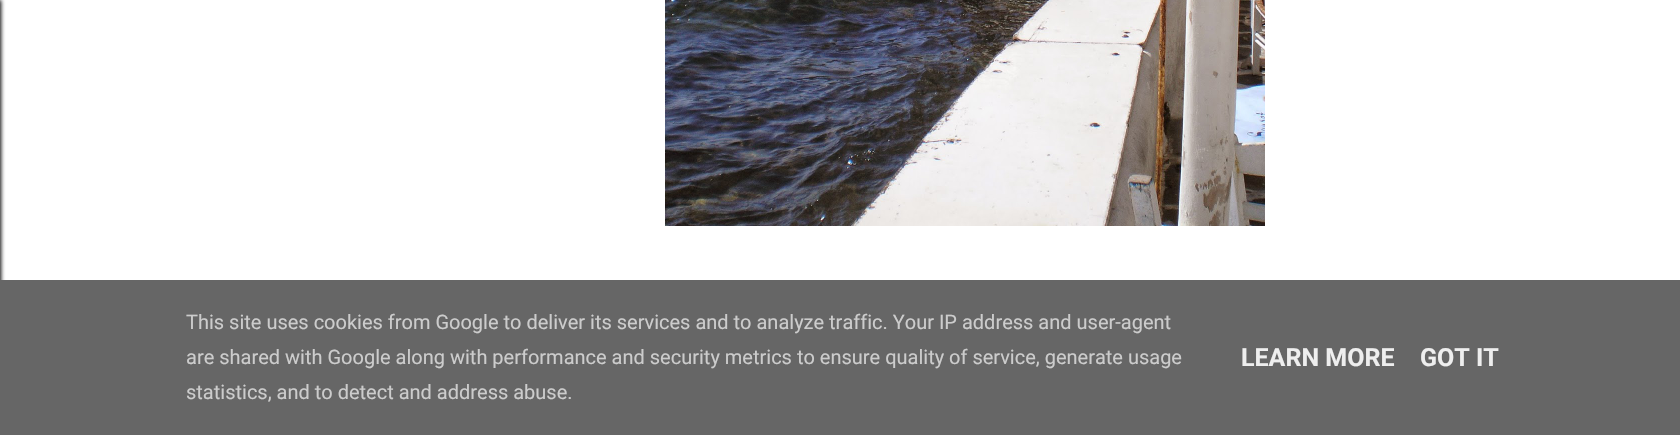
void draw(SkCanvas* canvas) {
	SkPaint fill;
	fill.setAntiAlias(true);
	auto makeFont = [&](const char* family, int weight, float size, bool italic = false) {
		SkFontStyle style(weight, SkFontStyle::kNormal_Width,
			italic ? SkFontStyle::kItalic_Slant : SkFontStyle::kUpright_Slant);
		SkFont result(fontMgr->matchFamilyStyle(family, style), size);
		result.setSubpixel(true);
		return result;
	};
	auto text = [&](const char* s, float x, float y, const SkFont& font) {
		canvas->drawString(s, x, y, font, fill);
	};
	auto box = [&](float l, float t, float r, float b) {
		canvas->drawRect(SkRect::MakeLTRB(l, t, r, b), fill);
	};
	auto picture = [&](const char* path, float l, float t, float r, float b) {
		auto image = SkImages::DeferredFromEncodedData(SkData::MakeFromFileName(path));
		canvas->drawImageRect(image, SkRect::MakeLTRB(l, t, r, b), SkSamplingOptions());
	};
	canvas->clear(0xFFFFFFFF);
	fill.setColor(0xFF000000);
	fill.setMaskFilter(SkMaskFilter::MakeBlur(kNormal_SkBlurStyle, 2));
	canvas->drawRect(SkRect::MakeLTRB(-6, 0, 1, 435), fill);
	fill.setMaskFilter(nullptr);
	picture("image0.png", 665, 0, 1265, 226);
	fill.setColor(0xFF666666);
	box(0, 280, 1680, 435);
	auto font1 = makeFont("Roboto", 400, 20);
	fill.setColor(0xFFCCCCCC);
	text("This site uses cookies from Google to deliver its services and to analyze traffic. Your IP address and user-agent", 186, 329, font1);
	text("are shared with Google along with performance and security metrics to ensure quality of service, generate usage", 186, 364, font1);
	text("statistics, and to detect and address abuse.", 186, 399, font1);
	auto font2 = makeFont("Roboto", 700, 25);
	fill.setColor(0xFFEEEEEE);
	text("LEARN MORE", 1241, 366, font2);
	text("GOT IT", 1420, 366, font2);
}
